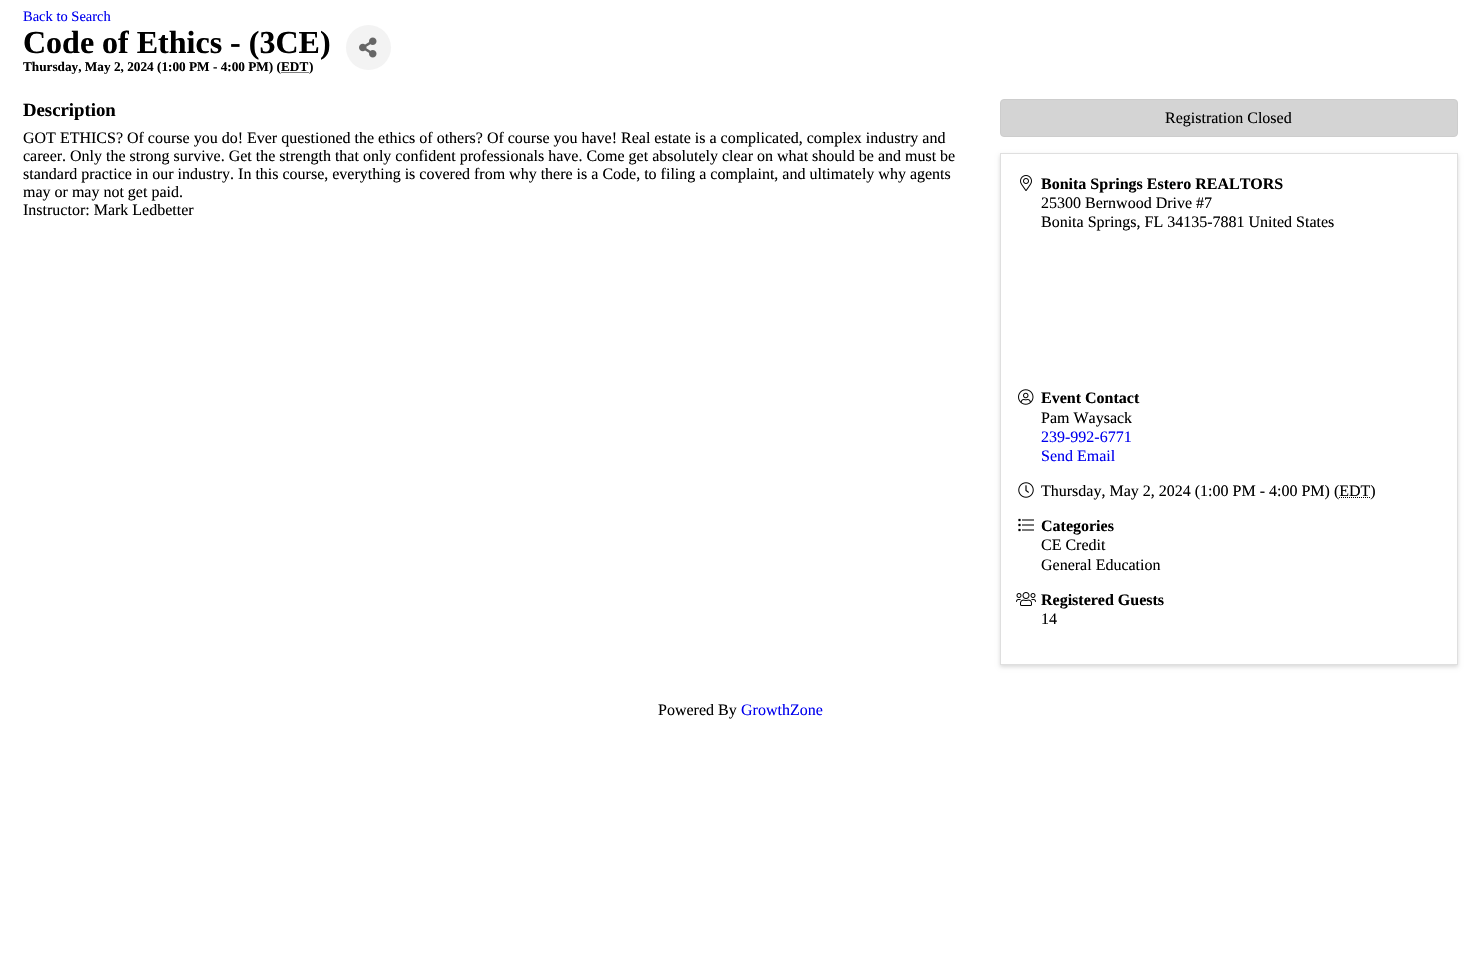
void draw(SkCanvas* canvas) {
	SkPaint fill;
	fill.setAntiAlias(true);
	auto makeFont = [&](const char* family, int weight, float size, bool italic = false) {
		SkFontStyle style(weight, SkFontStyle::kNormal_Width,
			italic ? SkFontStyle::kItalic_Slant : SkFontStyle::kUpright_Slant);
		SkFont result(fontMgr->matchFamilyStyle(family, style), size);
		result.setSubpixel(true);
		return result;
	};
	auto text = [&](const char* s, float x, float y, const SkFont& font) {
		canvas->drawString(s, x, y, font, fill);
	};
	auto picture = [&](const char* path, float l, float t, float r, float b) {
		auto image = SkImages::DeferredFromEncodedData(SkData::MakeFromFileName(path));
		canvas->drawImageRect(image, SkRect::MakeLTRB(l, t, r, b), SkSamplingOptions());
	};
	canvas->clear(0xFFFFFFFF);
	fill.setStyle(SkPaint::kStroke_Style);
	fill.setStrokeWidth(1);
	fill.setColor(0xFF000000);
	fill.setPathEffect(SkDashPathEffect::Make({{1, 1}}, 0));
	canvas->drawPath(SkPathBuilder().moveTo(281.5f, 72.5f).lineTo(308.5f, 72.5f).detach(), fill);
	fill.setPathEffect(nullptr);
	fill.setStyle(SkPaint::kFill_Style);
	fill.setColor(0xFFF3F3F3);
	canvas->drawCircle(368.5f, 47.5f, 22.5f, fill);
	picture("image0.png", 359, 37, 377, 58);
	fill.setColor(0xFFD4D4D4);
	canvas->drawRoundRect(SkRect::MakeLTRB(1000.5f, 99.5f, 1457.5f, 136.5f), 3.5f, 3.5f, fill);
	fill.setStyle(SkPaint::kStroke_Style);
	fill.setColor(0xFFCDCDCD);
	canvas->drawRoundRect(SkRect::MakeLTRB(1000.5f, 99.5f, 1457.5f, 136.5f), 3.5f, 3.5f, fill);
	canvas->save();
	canvas->clipPath(SkPathBuilder(SkPathFillType::kEvenOdd).moveTo(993, 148).lineTo(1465, 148).lineTo(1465, 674).lineTo(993, 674).close().moveTo(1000, 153).lineTo(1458, 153).lineTo(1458, 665).lineTo(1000, 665).close().detach(), true);
	fill.setStyle(SkPaint::kFill_Style);
	fill.setColor(0x26000000);
	fill.setMaskFilter(SkMaskFilter::MakeBlur(kNormal_SkBlurStyle, 2));
	canvas->drawRect(SkRect::MakeLTRB(1000, 155, 1458, 667), fill);
	fill.setMaskFilter(nullptr);
	canvas->restore();
	fill.setStyle(SkPaint::kStroke_Style);
	fill.setColor(0xFFDFDFDF);
	canvas->drawRect(SkRect::MakeLTRB(1000.5f, 153.5f, 1457.5f, 664.5f), fill);
	picture("image1.png", 1020, 175, 1032, 191);
	picture("image2.png", 1018, 389, 1034, 405);
	picture("image3.png", 1018, 482, 1034, 498);
	fill.setColor(0xFF000000);
	fill.setPathEffect(SkDashPathEffect::Make({{1, 1}}, 0));
	canvas->drawPath(SkPathBuilder().moveTo(1339, 497.5f).lineTo(1370, 497.5f).detach(), fill);
	fill.setPathEffect(nullptr);
	picture("image4.png", 1018, 518, 1034, 532);
	picture("image5.png", 1016, 592, 1036, 606);
	auto font1 = makeFont("Liberation Serif", 400, 14.5f);
	fill.setStyle(SkPaint::kFill_Style);
	fill.setColor(0xFF0000EE);
	text("Back to Search", 23, 21, font1);
	auto font2 = makeFont("Liberation Serif", 700, 32);
	fill.setColor(0xFF000000);
	text("Code of Ethics - (3CE)", 23, 53, font2);
	auto font3 = makeFont("Liberation Serif", 700, 13.25f);
	text("Thursday, May 2, 2024 (1:00 PM - 4:00 PM) (EDT", 23, 71, font3);
	text(")", 309, 71, font3);
	auto font4 = makeFont("Liberation Serif", 700, 18.75f);
	text("Description", 23, 116, font4);
	auto font5 = makeFont("Liberation Serif", 400, 16);
	text("GOT ETHICS? Of course you do! Ever questioned the ethics of others? Of course you have! Real estate is a complicated, complex industry and", 23, 143, font5);
	text("career. Only the strong survive. Get the strength that only confident professionals have. Come get absolutely clear on what should be and must be", 23, 161, font5);
	text("standard practice in our industry. In this course, everything is covered from why there is a Code, to filing a complaint, and ultimately why agents", 23, 179, font5);
	text("may or may not get paid.", 23, 197, font5);
	text("Instructor: Mark Ledbetter", 23, 215, font5);
	text("Registration Closed", 1165, 123, font5);
	auto font6 = makeFont("Liberation Serif", 700, 16);
	text("Bonita Springs Estero REALTORS", 1041, 189, font6);
	text("25300 Bernwood Drive #7", 1041, 208, font5);
	text("Bonita Springs, FL 34135-7881 United States", 1041, 227, font5);
	text("Event Contact", 1041, 403, font6);
	text("Pam Waysack", 1041, 423, font5);
	fill.setColor(0xFF0000EE);
	text("239-992-6771", 1041, 442, font5);
	text("Send Email", 1041, 461, font5);
	fill.setColor(0xFF000000);
	text("Thursday, May 2, 2024 (1:00 PM - 4:00 PM) (EDT)", 1041, 496, font5);
	text("Categories", 1041, 531, font6);
	text("CE Credit", 1041, 550, font5);
	text("General Education", 1041, 570, font5);
	text("Registered Guests", 1041, 605, font6);
	text("14", 1041, 624, font5);
	text("Powered By", 658, 715, font5);
	fill.setColor(0xFF0000EE);
	text("GrowthZone", 741, 715, font5);
}
